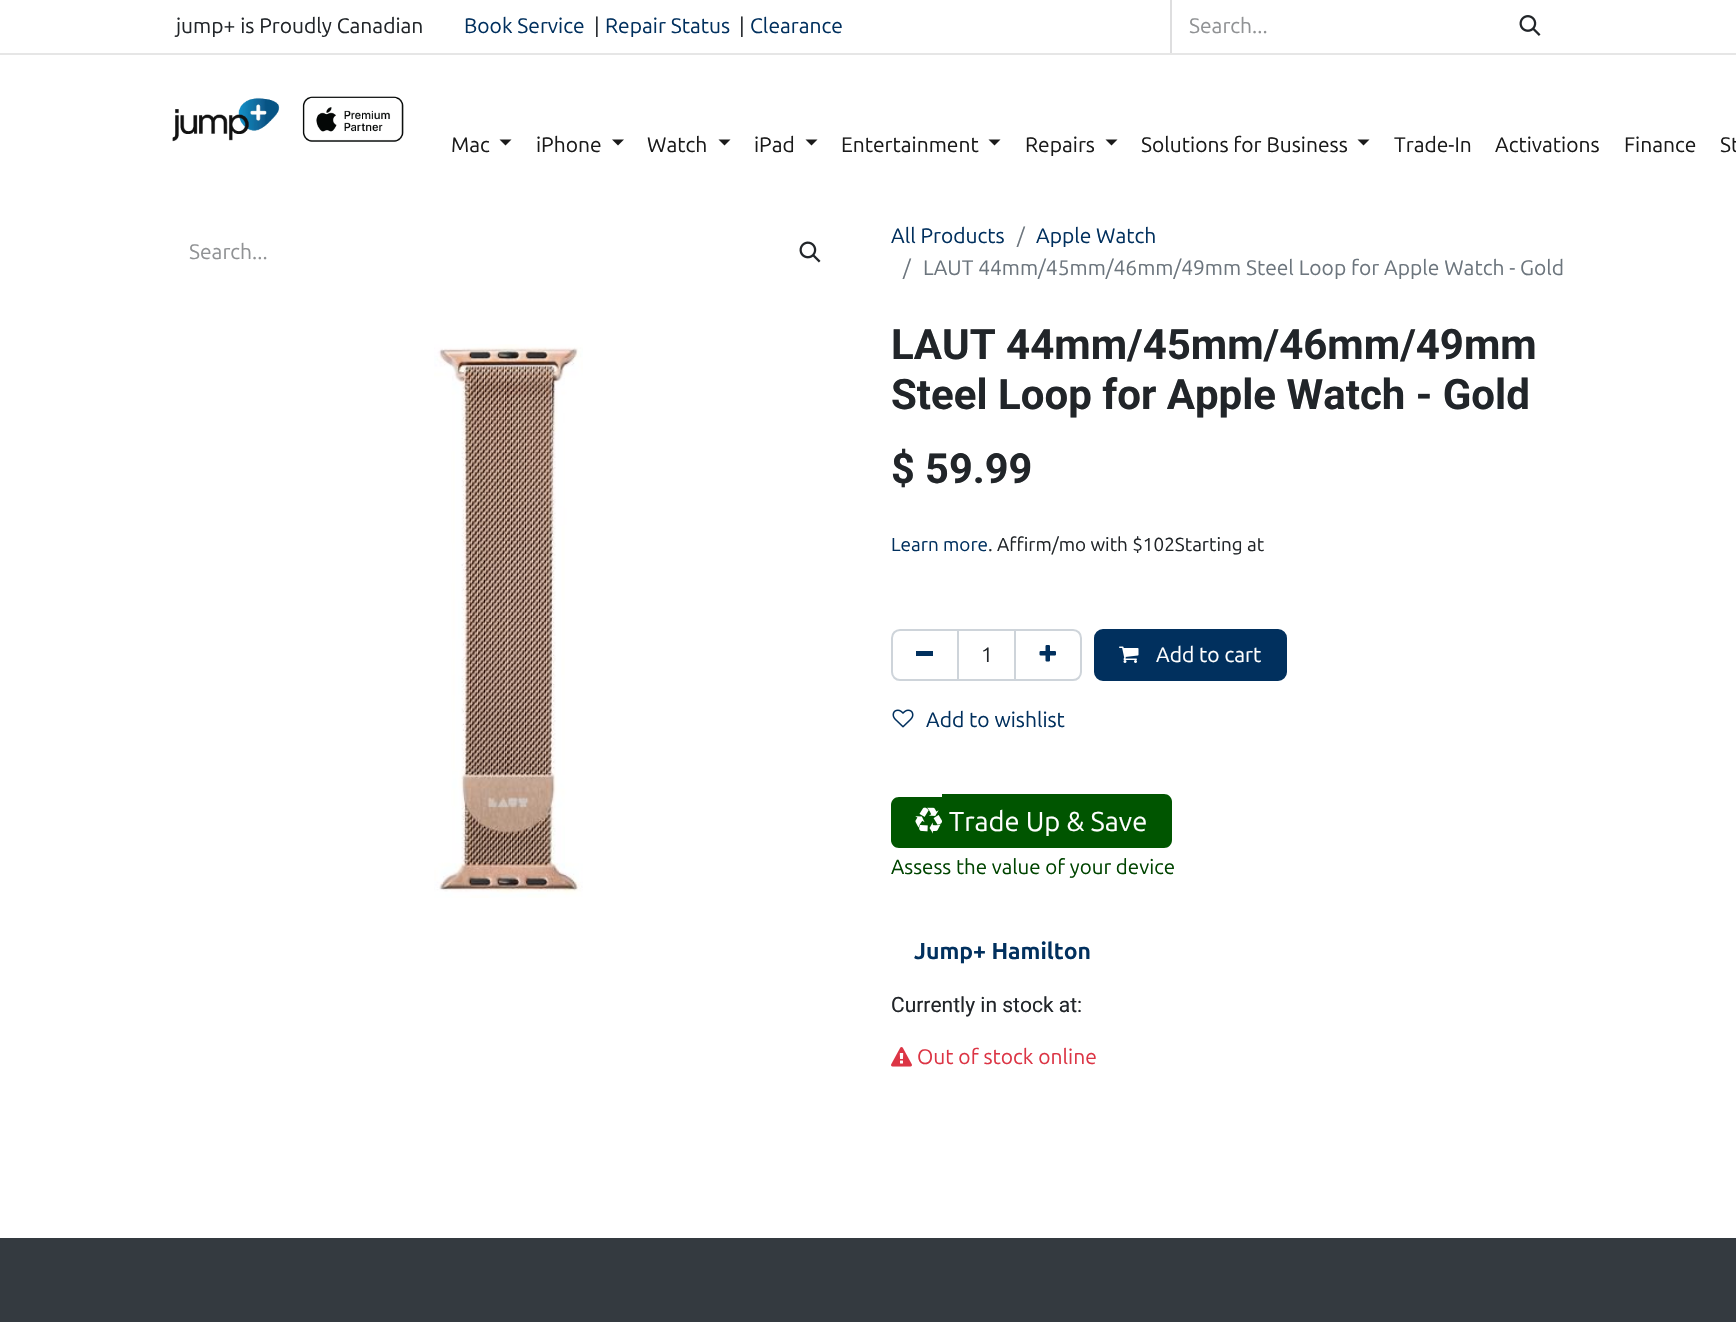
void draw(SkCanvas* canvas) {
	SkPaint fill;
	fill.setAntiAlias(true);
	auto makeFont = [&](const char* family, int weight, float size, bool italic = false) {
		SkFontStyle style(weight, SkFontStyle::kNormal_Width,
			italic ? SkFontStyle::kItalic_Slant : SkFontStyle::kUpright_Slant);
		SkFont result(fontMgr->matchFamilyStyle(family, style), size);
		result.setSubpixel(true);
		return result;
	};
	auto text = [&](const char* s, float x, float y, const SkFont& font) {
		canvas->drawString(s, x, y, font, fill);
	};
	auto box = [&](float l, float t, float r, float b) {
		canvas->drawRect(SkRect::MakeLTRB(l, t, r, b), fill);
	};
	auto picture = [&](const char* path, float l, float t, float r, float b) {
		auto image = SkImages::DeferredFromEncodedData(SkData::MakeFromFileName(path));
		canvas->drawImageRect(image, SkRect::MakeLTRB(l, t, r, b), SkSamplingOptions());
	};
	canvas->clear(0xFFFFFFFF);
	fill.setColor(0xFFE6E6E6);
	box(0, 53, 1736, 55);
	fill.setColor(0xFFDEDEDF);
	box(1170, 0, 1172, 53);
	picture("image0.png", 1519, 15, 1541, 36);
	picture("image1.png", 172, 96, 404, 142);
	fill.setColor(0xFF1A1A1A);
	canvas->drawPath(SkPathBuilder().moveTo(499.5f, 139.5f).lineTo(511.5f, 139.5f).lineTo(505.5f, 145.5f).close().detach(), fill);
	canvas->drawPath(SkPathBuilder().moveTo(612, 139.5f).lineTo(624, 139.5f).lineTo(618, 145.5f).close().detach(), fill);
	canvas->drawPath(SkPathBuilder().moveTo(718.5f, 139.5f).lineTo(730.5f, 139.5f).lineTo(724.5f, 145.5f).close().detach(), fill);
	canvas->drawPath(SkPathBuilder().moveTo(805.5f, 139.5f).lineTo(817.5f, 139.5f).lineTo(811.5f, 145.5f).close().detach(), fill);
	canvas->drawPath(SkPathBuilder().moveTo(988.5f, 139.5f).lineTo(1000.5f, 139.5f).lineTo(994.5f, 145.5f).close().detach(), fill);
	canvas->drawPath(SkPathBuilder().moveTo(1105.5f, 139.5f).lineTo(1117.5f, 139.5f).lineTo(1111.5f, 145.5f).close().detach(), fill);
	canvas->drawPath(SkPathBuilder().moveTo(1357.5f, 139.5f).lineTo(1369.5f, 139.5f).lineTo(1363.5f, 145.5f).close().detach(), fill);
	picture("image2.png", 799, 241, 821, 263);
	picture("image3.png", 434, 344, 583, 898);
	fill.setStyle(SkPaint::kStroke_Style);
	fill.setStrokeWidth(2);
	fill.setColor(0xFFCED4DA);
	canvas->drawRect(SkRect::MakeLTRB(958, 630, 1015, 680), fill);
	canvas->drawPath(SkPathBuilder().moveTo(900, 630).lineTo(958, 630).lineTo(958, 680).lineTo(900, 680).cubicTo(895.5f, 680, 892, 676.5f, 892, 672).lineTo(892, 638).cubicTo(892, 633.5f, 895.5f, 630, 900, 630).close().detach(), fill);
	fill.setStyle(SkPaint::kFill_Style);
	fill.setColor(0xFF01305E);
	box(916, 651, 933, 656);
	fill.setStyle(SkPaint::kStroke_Style);
	fill.setColor(0xFFCED4DA);
	canvas->drawPath(SkPathBuilder().moveTo(1015, 630).lineTo(1073, 630).cubicTo(1077.5f, 630, 1081, 633.5f, 1081, 638).lineTo(1081, 672).cubicTo(1081, 676.5f, 1077.5f, 680, 1073, 680).lineTo(1015, 680).close().detach(), fill);
	picture("image4.png", 1039, 645, 1056, 662);
	fill.setStyle(SkPaint::kFill_Style);
	fill.setColor(0xFF01305E);
	canvas->drawRoundRect(SkRect::MakeLTRB(1095, 630, 1286, 680), 8, 8, fill);
	fill.setStyle(SkPaint::kStroke_Style);
	canvas->drawRoundRect(SkRect::MakeLTRB(1095, 630, 1286, 680), 8, 8, fill);
	picture("image5.png", 1119, 646, 1139, 663);
	picture("image6.png", 892, 709, 914, 728);
	fill.setStyle(SkPaint::kFill_Style);
	fill.setColor(0xFF005500);
	canvas->drawPath(SkPathBuilder().moveTo(899, 797).lineTo(942, 797).lineTo(942, 848).lineTo(899, 848).cubicTo(894.5f, 848, 891, 844.5f, 891, 840).lineTo(891, 805).cubicTo(891, 800.5f, 894.5f, 797, 899, 797).close().detach(), fill);
	canvas->drawPath(SkPathBuilder().moveTo(942, 794).lineTo(1164, 794).cubicTo(1168.5f, 794, 1172, 797.5f, 1172, 802).lineTo(1172, 840).cubicTo(1172, 844.5f, 1168.5f, 848, 1164, 848).lineTo(942, 848).close().detach(), fill);
	picture("image7.png", 915, 807, 942, 834);
	picture("image8.png", 891, 1047, 912, 1067);
	fill.setColor(0xFF343A40);
	box(0, 1238, 1736, 1322);
	auto font1 = makeFont("Ubuntu", 400, 21);
	fill.setColor(0xFF212529);
	text("jump+ is Proudly Canadian", 176, 33, font1);
	fill.setColor(0xFF01305E);
	text("Book Service", 464, 33, font1);
	fill.setColor(0xFF212529);
	text("|", 594, 33, font1);
	fill.setColor(0xFF01305E);
	text("Repair Status", 605, 33, font1);
	fill.setColor(0xFF212529);
	text("|", 739, 33, font1);
	fill.setColor(0xFF01305E);
	text("Clearance", 750, 33, font1);
	fill.setColor(0xFF909294);
	text("Search...", 1189, 33, font1);
	fill.setColor(0xFF1A1A1A);
	text("Mac", 451, 152, font1);
	text("iPhone", 536, 152, font1);
	text("Watch", 647, 152, font1);
	text("iPad", 754, 152, font1);
	text("Entertainment", 841, 152, font1);
	text("Repairs", 1025, 152, font1);
	text("Solutions for Business", 1141, 152, font1);
	text("Trade-In", 1394, 152, font1);
	text("Activations", 1495, 152, font1);
	text("Finance", 1624, 152, font1);
	text("St", 1720, 152, font1);
	fill.setColor(0xFF909294);
	text("Search...", 189, 259, font1);
	fill.setColor(0xFF01305E);
	text("All Products", 891, 243, font1);
	fill.setColor(0xFF6C757D);
	text("/", 1017, 243, font1);
	fill.setColor(0xFF01305E);
	text("Apple Watch", 1036, 243, font1);
	fill.setColor(0xFF6C757D);
	text("/", 903, 275, font1);
	text("LAUT 44mm/45mm/46mm/49mm Steel Loop for Apple Watch - Gold", 923, 275, font1);
	auto font2 = makeFont("Roboto", 700, 42);
	fill.setColor(0xFF212529);
	text("LAUT 44mm/45mm/46mm/49mm", 891, 359, font2);
	text("Steel Loop for Apple Watch - Gold", 891, 409, font2);
	auto font3 = makeFont("Roboto", 700, 41.5f);
	text("$ 59.99", 891, 483, font3);
	auto font4 = makeFont("Ubuntu", 400, 18.9f);
	fill.setColor(0xFF01305E);
	text("Learn more", 891, 551, font4);
	fill.setColor(0xFF212529);
	text(". Affirm/mo with $102Starting at", 988, 551, font4);
	text("1", 981, 662, font1);
	fill.setColor(0xFFFFFFFF);
	text("Add to cart", 1156, 662, font1);
	fill.setColor(0xFF01305E);
	text("Add to wishlist", 926, 727, font1);
	auto font5 = makeFont("Ubuntu", 400, 27.25f);
	fill.setColor(0xFFFFFFFF);
	text("Trade Up & Save", 949, 831, font5);
	auto font6 = makeFont("Ubuntu", 400, 20.5f);
	fill.setColor(0xFF004400);
	text("Assess the value of your device", 891, 874, font6);
	auto font7 = makeFont("Ubuntu", 700, 23);
	fill.setColor(0xFF01305E);
	text("Jump+ Hamilton", 914, 959, font7);
	auto font8 = makeFont("Roboto", 400, 21);
	fill.setColor(0xFF212529);
	text("Currently in stock at:", 891, 1012, font8);
	fill.setColor(0xFFDC3545);
	text("Out of stock online", 917, 1064, font1);
}
